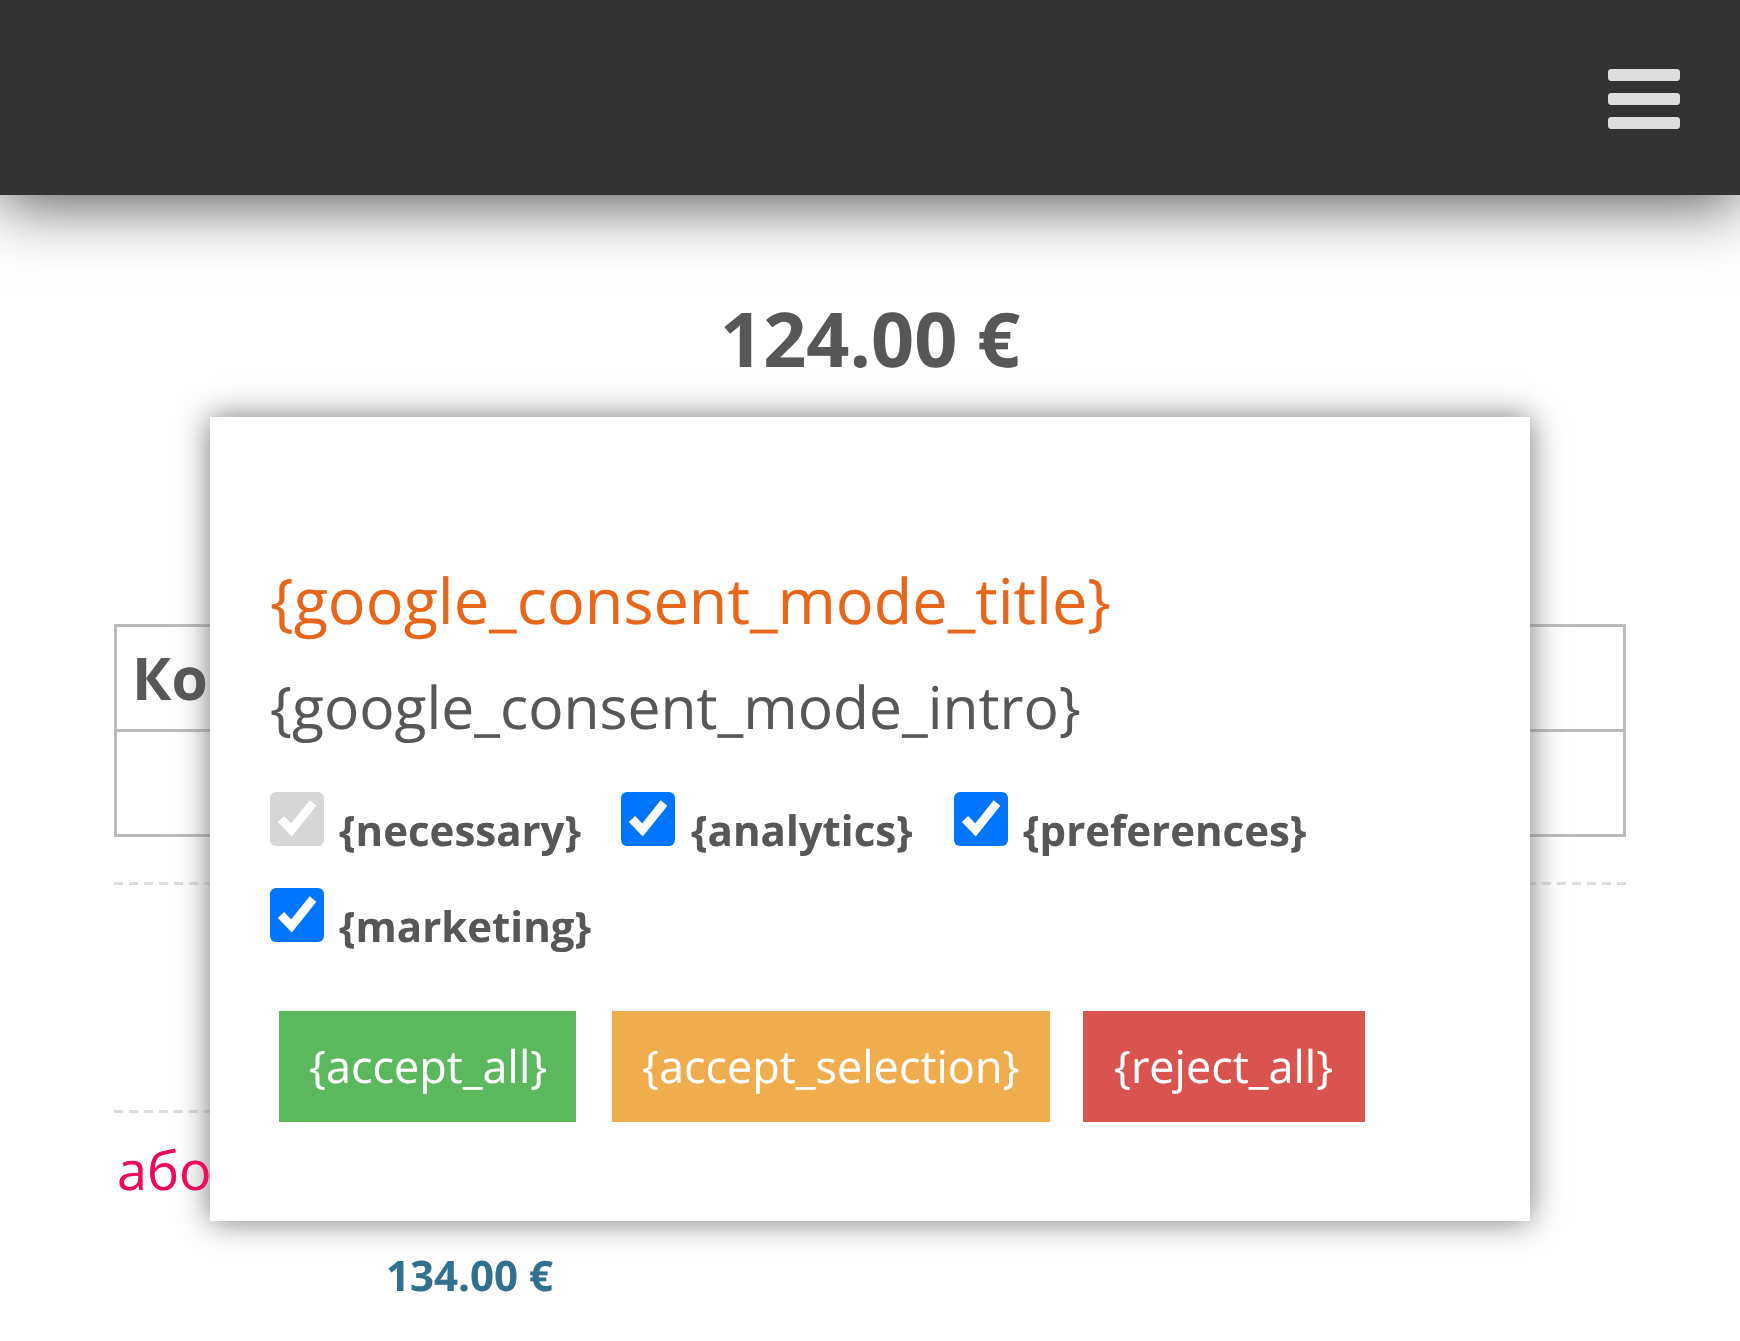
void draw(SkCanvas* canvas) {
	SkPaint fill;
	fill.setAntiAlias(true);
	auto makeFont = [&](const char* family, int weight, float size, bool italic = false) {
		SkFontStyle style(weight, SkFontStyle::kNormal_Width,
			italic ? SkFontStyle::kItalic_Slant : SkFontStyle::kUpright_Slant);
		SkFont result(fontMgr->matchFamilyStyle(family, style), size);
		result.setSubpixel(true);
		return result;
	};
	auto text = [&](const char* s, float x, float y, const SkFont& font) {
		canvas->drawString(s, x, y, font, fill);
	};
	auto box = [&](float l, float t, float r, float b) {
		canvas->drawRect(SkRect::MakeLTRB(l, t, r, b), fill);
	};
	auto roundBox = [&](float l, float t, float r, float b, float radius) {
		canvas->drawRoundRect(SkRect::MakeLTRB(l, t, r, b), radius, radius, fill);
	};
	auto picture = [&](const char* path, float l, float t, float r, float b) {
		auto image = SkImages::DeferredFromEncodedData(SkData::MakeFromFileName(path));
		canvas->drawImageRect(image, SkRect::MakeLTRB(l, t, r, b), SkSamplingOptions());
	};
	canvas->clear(0xFFFFFFFF);
	fill.setColor(0xFF555555);
	fill.setMaskFilter(SkMaskFilter::MakeBlur(kNormal_SkBlurStyle, 30));
	canvas->drawRect(SkRect::MakeLTRB(0, 9, 1740, 204), fill);
	fill.setMaskFilter(nullptr);
	fill.setColor(0xFF333333);
	box(0, 0, 1740, 195);
	picture("image0.png", 1608, 69, 1680, 129);
	fill.setColor(0xFFBBBBBB);
	box(114, 624, 210, 627);
	box(114, 834, 210, 837);
	box(114, 729, 117, 837);
	box(114, 729, 210, 732);
	box(114, 624, 117, 732);
	box(1530, 624, 1626, 627);
	box(1623, 729, 1626, 837);
	box(1623, 624, 1626, 732);
	box(1530, 729, 1626, 732);
	box(1530, 834, 1626, 837);
	fill.setStyle(SkPaint::kStroke_Style);
	fill.setStrokeWidth(3);
	fill.setColor(0xFFDDDDDD);
	fill.setPathEffect(SkDashPathEffect::Make({{9, 6.03f}}, 0));
	canvas->drawPath(SkPathBuilder().moveTo(114, 883.5f).lineTo(1626, 883.5f).detach(), fill);
	fill.setPathEffect(nullptr);
	fill.setPathEffect(SkDashPathEffect::Make({{9, 5.94f}}, 0));
	canvas->drawPath(SkPathBuilder().moveTo(114, 1111.5f).lineTo(825, 1111.5f).detach(), fill);
	fill.setPathEffect(nullptr);
	fill.setStyle(SkPaint::kFill_Style);
	fill.setColor(0xFF777777);
	fill.setMaskFilter(SkMaskFilter::MakeBlur(kNormal_SkBlurStyle, 15));
	canvas->drawRect(SkRect::MakeLTRB(210, 417, 1530, 1221), fill);
	fill.setMaskFilter(nullptr);
	fill.setColor(0xFFFFFFFF);
	box(210, 417, 1530, 1221);
	fill.setColor(0xFFD6D6D6);
	roundBox(270, 792, 324, 846, 6);
	fill.setStyle(SkPaint::kStroke_Style);
	fill.setStrokeWidth(8.6f);
	fill.setColor(0xFFFFFFFF);
	canvas->drawPath(SkPathBuilder().moveTo(281, 819).lineTo(291.5f, 830).lineTo(313, 803).detach(), fill);
	fill.setStyle(SkPaint::kFill_Style);
	fill.setColor(0xFF0075FF);
	roundBox(621, 792, 675, 846, 6);
	fill.setStyle(SkPaint::kStroke_Style);
	fill.setColor(0xFFFFFFFF);
	canvas->drawPath(SkPathBuilder().moveTo(632, 819).lineTo(642.5f, 830).lineTo(664, 803).detach(), fill);
	fill.setStyle(SkPaint::kFill_Style);
	fill.setColor(0xFF0075FF);
	roundBox(954, 792, 1008, 846, 6);
	fill.setStyle(SkPaint::kStroke_Style);
	fill.setColor(0xFFFFFFFF);
	canvas->drawPath(SkPathBuilder().moveTo(965, 819).lineTo(975.5f, 830).lineTo(997, 803).detach(), fill);
	fill.setStyle(SkPaint::kFill_Style);
	fill.setColor(0xFF0075FF);
	roundBox(270, 888, 324, 942, 6);
	fill.setStyle(SkPaint::kStroke_Style);
	fill.setColor(0xFFFFFFFF);
	canvas->drawPath(SkPathBuilder().moveTo(281, 915).lineTo(291.5f, 926).lineTo(313, 899).detach(), fill);
	fill.setStyle(SkPaint::kFill_Style);
	fill.setColor(0xFF5CB85C);
	box(279, 1011, 576, 1122);
	fill.setColor(0xFFF0AD4E);
	box(612, 1011, 1050, 1122);
	fill.setColor(0xFFD9534F);
	box(1083, 1011, 1365, 1122);
	auto font1 = makeFont("Open Sans", 700, 75.5f);
	fill.setColor(0xFF575757);
	text("124.00 €", 720, 367, font1);
	auto font2 = makeFont("Open Sans", 700, 58.75f);
	text("Ко", 132, 700, font2);
	auto font3 = makeFont("Open Sans", 400, 54);
	fill.setColor(0xFFEC0A5D);
	text("або", 117, 1190, font3);
	auto font4 = makeFont("Open Sans", 700, 42);
	fill.setColor(0xFF31708F);
	text("134.00 €", 386, 1291, font4);
	auto font5 = makeFont("Open Sans", 400, 63);
	fill.setColor(0xFFE8661A);
	text("{google_consent_mode_title}", 270, 624, font5);
	auto font6 = makeFont("Open Sans", 400, 58.75f);
	fill.setColor(0xFF575757);
	text("{google_consent_mode_intro}", 270, 729, font6);
	text("{necessary}", 339, 846, font4);
	text("{analytics}", 691, 846, font4);
	text("{preferences}", 1023, 846, font4);
	text("{marketing}", 339, 942, font4);
	auto font7 = makeFont("Open Sans", 400, 45);
	fill.setColor(0xFFFFFFFF);
	text("{accept_all}", 309, 1083, font7);
	text("{accept_selection}", 642, 1083, font7);
	text("{reject_all}", 1114, 1083, font7);
}
